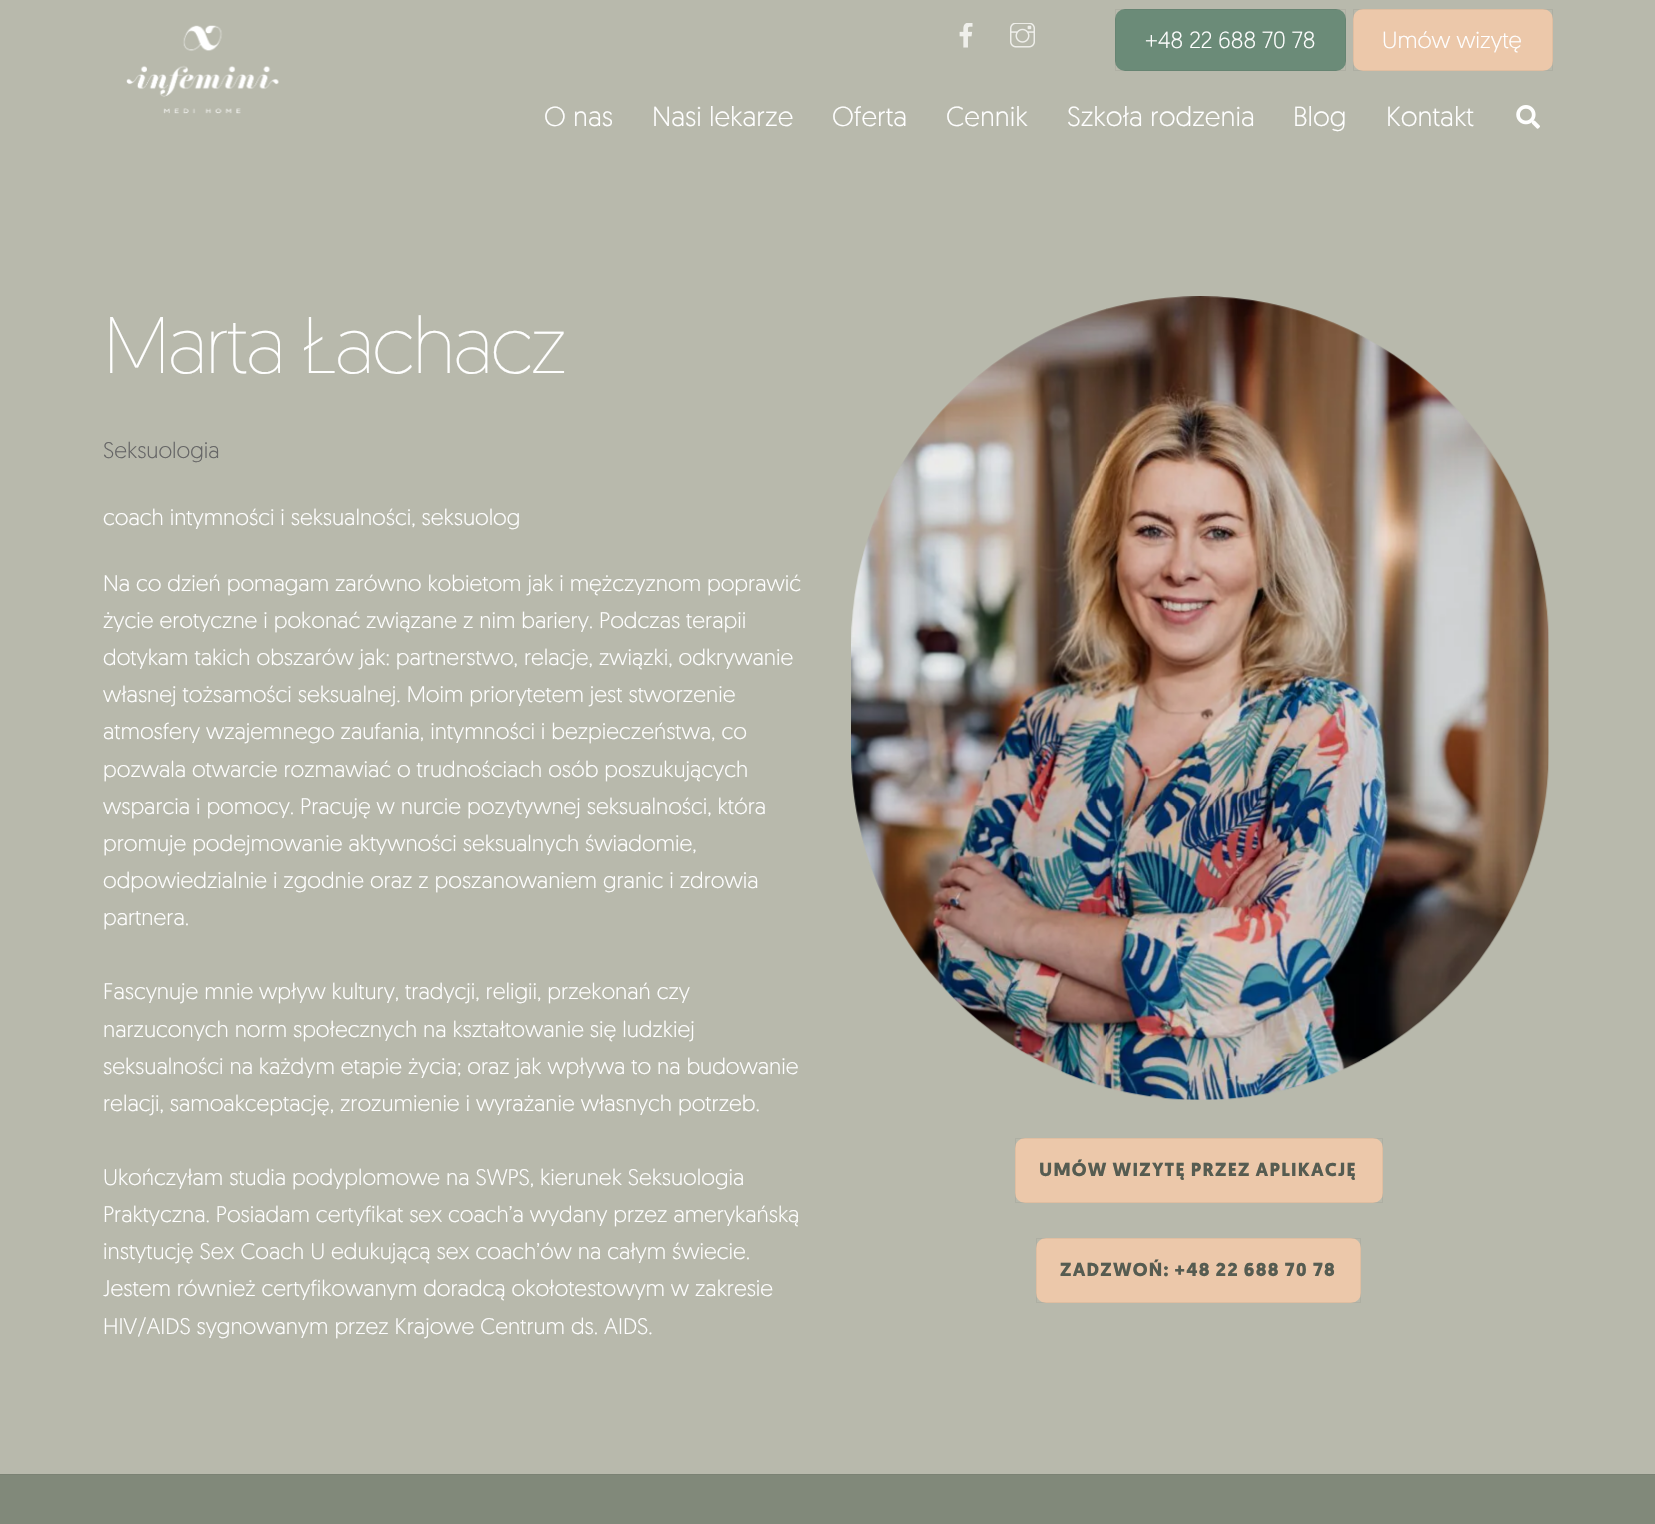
void draw(SkCanvas* canvas) {
	SkPaint fill;
	fill.setAntiAlias(true);
	auto makeFont = [&](const char* family, int weight, float size, bool italic = false) {
		SkFontStyle style(weight, SkFontStyle::kNormal_Width,
			italic ? SkFontStyle::kItalic_Slant : SkFontStyle::kUpright_Slant);
		SkFont result(fontMgr->matchFamilyStyle(family, style), size);
		result.setSubpixel(true);
		return result;
	};
	auto text = [&](const char* s, float x, float y, const SkFont& font) {
		canvas->drawString(s, x, y, font, fill);
	};
	auto spacedText = [&](const char* s, float x, float y, const SkFont& font, const SkPaint& ink, float letter, float word) {
		std::vector<SkGlyphID> glyphs(font.countText(s, strlen(s), SkTextEncoding::kUTF8));
		std::vector<float> xs(glyphs.size());
		font.textToGlyphs(s, strlen(s), SkTextEncoding::kUTF8, glyphs);
		font.getXPos(glyphs, xs, x);
		float extra = 0;
		for (size_t i = 0; i < glyphs.size(); i++) {
			xs[i] += extra;
			extra += letter + word * (glyphs[i] == font.unicharToGlyph(' '));
		}
		canvas->drawTextBlob(SkTextBlob::MakeFromPosHGlyphs(glyphs, xs, y, font), 0, 0, ink);
	};
	auto box = [&](float l, float t, float r, float b) {
		canvas->drawRect(SkRect::MakeLTRB(l, t, r, b), fill);
	};
	auto roundBox = [&](float l, float t, float r, float b, float radius) {
		canvas->drawRoundRect(SkRect::MakeLTRB(l, t, r, b), radius, radius, fill);
	};
	auto picture = [&](const char* path, float l, float t, float r, float b) {
		auto image = SkImages::DeferredFromEncodedData(SkData::MakeFromFileName(path));
		canvas->drawImageRect(image, SkRect::MakeLTRB(l, t, r, b), SkSamplingOptions());
	};
	canvas->clear(0xFF81897A);
	fill.setColor(0xFFB8B9AC);
	box(0, 0, 1655, 1474);
	picture("image0.png", 959, 23, 973, 48);
	picture("image1.png", 1010, 23, 1035, 48);
	fill.setColor(0xFF6B8B78);
	roundBox(1115, 9, 1346, 71, 10);
	fill.setStyle(SkPaint::kStroke_Style);
	fill.setStrokeWidth(1);
	fill.setColor(0x0D000000);
	canvas->drawRect(SkRect::MakeLTRB(1115.5f, 9.5f, 1345.5f, 70.5f), fill);
	fill.setStyle(SkPaint::kFill_Style);
	fill.setColor(0xFFECC8AA);
	roundBox(1353, 9, 1553, 71, 10);
	fill.setStyle(SkPaint::kStroke_Style);
	fill.setColor(0x0D000000);
	canvas->drawRect(SkRect::MakeLTRB(1353.5f, 9.5f, 1552.5f, 70.5f), fill);
	picture("image2.png", 126, 25, 279, 114);
	picture("image3.png", 1516, 105, 1540, 129);
	picture("image4.png", 851, 296, 1549, 1100);
	fill.setStyle(SkPaint::kFill_Style);
	fill.setColor(0xFFECC8AA);
	roundBox(1015, 1138, 1383, 1203, 10);
	fill.setStyle(SkPaint::kStroke_Style);
	fill.setColor(0x0D000000);
	canvas->drawRect(SkRect::MakeLTRB(1015.5f, 1138.5f, 1382.5f, 1202.5f), fill);
	fill.setStyle(SkPaint::kFill_Style);
	fill.setColor(0xFFECC8AA);
	roundBox(1036, 1238, 1361, 1303, 10);
	fill.setStyle(SkPaint::kStroke_Style);
	fill.setColor(0x0D000000);
	canvas->drawRect(SkRect::MakeLTRB(1036.5f, 1238.5f, 1360.5f, 1302.5f), fill);
	fill.setStyle(SkPaint::kFill_Style);
	fill.setColor(0xFF7B8274);
	box(0, 1474, 1655, 1475);
	auto font1 = makeFont("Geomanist", 300, 23.25f);
	fill.setColor(0xFFFFFFFF);
	text("+48 22 688 70 78", 1145, 48, font1);
	text("Umów wizytę", 1382, 48, font1);
	auto font2 = makeFont("Geomanist", 300, 27.5f);
	text("O nas", 544, 126, font2);
	text("Nasi lekarze", 652, 126, font2);
	text("Oferta", 832, 126, font2);
	text("Cennik", 946, 126, font2);
	text("Szkoła rodzenia", 1067, 126, font2);
	text("Blog", 1293, 126, font2);
	text("Kontakt", 1386, 126, font2);
	auto font3 = makeFont("Geomanist", 200, 80);
	spacedText("Marta Łachacz", 103, 373, font3, fill, -2.4f, 0);
	auto font4 = makeFont("Geomanist", 300, 22.5f);
	fill.setColor(0xFF666666);
	text("Seksuologia", 103, 458, font4);
	fill.setColor(0xFFFFFFFF);
	text("coach intymności i seksualności, seksuolog", 103, 525, font4);
	text("Na co dzień pomagam zarówno kobietom jak i mężczyznom poprawić", 103, 591, font4);
	text("życie erotyczne i pokonać związane z nim bariery. Podczas terapii", 103, 628, font4);
	text("dotykam takich obszarów jak: partnerstwo, relacje, związki, odkrywanie", 103, 665, font4);
	text("własnej tożsamości seksualnej. Moim priorytetem jest stworzenie", 103, 702, font4);
	text("atmosfery wzajemnego zaufania, intymności i bezpieczeństwa, co", 103, 739, font4);
	text("pozwala otwarcie rozmawiać o trudnościach osób poszukujących", 103, 777, font4);
	text("wsparcia i pomocy. Pracuję w nurcie pozytywnej seksualności, która", 103, 814, font4);
	text("promuje podejmowanie aktywności seksualnych świadomie,", 103, 851, font4);
	text("odpowiedzialnie i zgodnie oraz z poszanowaniem granic i zdrowia", 103, 888, font4);
	text("partnera.", 103, 925, font4);
	text("Fascynuje mnie wpływ kultury, tradycji, religii, przekonań czy", 103, 999, font4);
	text("narzuconych norm społecznych na kształtowanie się ludzkiej", 103, 1037, font4);
	text("seksualności na każdym etapie życia; oraz jak wpływa to na budowanie", 103, 1074, font4);
	text("relacji, samoakceptację, zrozumienie i wyrażanie własnych potrzeb.", 103, 1111, font4);
	text("Ukończyłam studia podyplomowe na SWPS, kierunek Seksuologia", 103, 1185, font4);
	text("Praktyczna. Posiadam certyfikat sex coach’a wydany przez amerykańską", 103, 1222, font4);
	text("instytucję Sex Coach U edukującą sex coach’ów na całym świecie.", 103, 1259, font4);
	text("Jestem również certyfikowanym doradcą okołotestowym w zakresie", 103, 1296, font4);
	text("HIV/AIDS sygnowanym przez Krajowe Centrum ds. AIDS.", 103, 1334, font4);
	auto font5 = makeFont("Geomanist", 700, 18.75f);
	fill.setColor(0xFF565C51);
	spacedText("UMÓW WIZYTĘ PRZEZ APLIKACJĘ", 1039, 1176, font5, fill, 1.25f, 0);
	spacedText("ZADZWOŃ: +48 22 688 70 78", 1060, 1276, font5, fill, 1.25f, 0);
}
